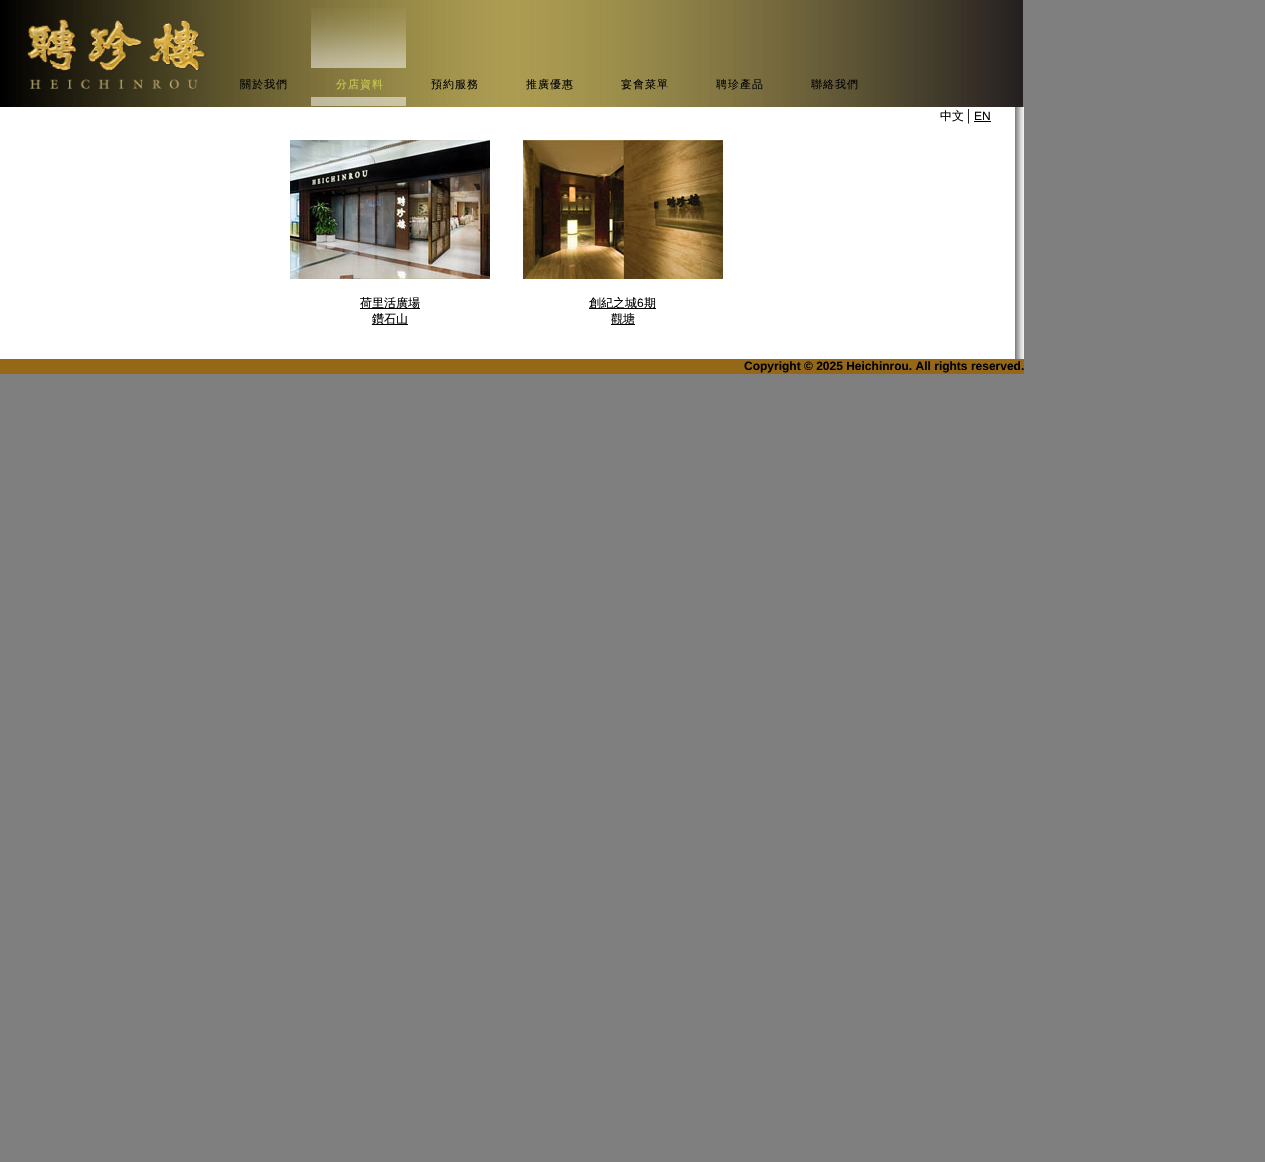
void draw(SkCanvas* canvas) {
	SkPaint fill;
	fill.setAntiAlias(true);
	auto makeFont = [&](const char* family, int weight, float size, bool italic = false) {
		SkFontStyle style(weight, SkFontStyle::kNormal_Width,
			italic ? SkFontStyle::kItalic_Slant : SkFontStyle::kUpright_Slant);
		SkFont result(fontMgr->matchFamilyStyle(family, style), size);
		result.setSubpixel(true);
		return result;
	};
	auto text = [&](const char* s, float x, float y, const SkFont& font) {
		canvas->drawString(s, x, y, font, fill);
	};
	auto spacedText = [&](const char* s, float x, float y, const SkFont& font, const SkPaint& ink, float letter, float word) {
		std::vector<SkGlyphID> glyphs(font.countText(s, strlen(s), SkTextEncoding::kUTF8));
		std::vector<float> xs(glyphs.size());
		font.textToGlyphs(s, strlen(s), SkTextEncoding::kUTF8, glyphs);
		font.getXPos(glyphs, xs, x);
		float extra = 0;
		for (size_t i = 0; i < glyphs.size(); i++) {
			xs[i] += extra;
			extra += letter + word * (glyphs[i] == font.unicharToGlyph(' '));
		}
		canvas->drawTextBlob(SkTextBlob::MakeFromPosHGlyphs(glyphs, xs, y, font), 0, 0, ink);
	};
	auto box = [&](float l, float t, float r, float b) {
		canvas->drawRect(SkRect::MakeLTRB(l, t, r, b), fill);
	};
	auto picture = [&](const char* path, float l, float t, float r, float b) {
		auto image = SkImages::DeferredFromEncodedData(SkData::MakeFromFileName(path));
		canvas->drawImageRect(image, SkRect::MakeLTRB(l, t, r, b), SkSamplingOptions());
	};
	canvas->clear(0xFF7F7F7F);
	picture("image0.png", 0, 0, 1023, 107);
	picture("image1.png", 24, 16, 208, 96);
	picture("image2.png", 311, 8, 406, 106);
	fill.setColor(0xFFFFFFFF);
	box(0, 107, 1015, 359);
	picture("image3.png", 1015, 107, 1024, 124);
	fill.setColor(0xFF000000);
	box(974, 121, 991, 122);
	picture("image4.png", 290, 140, 490, 279);
	picture("image5.png", 523, 140, 723, 279);
	box(360, 308, 420, 309);
	box(372, 324, 408, 325);
	box(589, 308, 656, 309);
	box(611, 324, 635, 325);
	picture("image6.png", 1015, 124, 1024, 343);
	picture("image7.png", 1015, 343, 1024, 359);
	fill.setColor(0xFF946816);
	box(0, 359, 1024, 374);
	auto font1 = makeFont("WenQuanYi Zen Hei", 500, 11);
	fill.setColor(0xFF000000);
	spacedText("關於我們", 240, 88, font1, fill, 1, 0);
	fill.setColor(0xFFC9C751);
	spacedText("分店資料", 336, 88, font1, fill, 1, 0);
	fill.setColor(0xFF000000);
	spacedText("預約服務", 431, 88, font1, fill, 1, 0);
	spacedText("推廣優惠", 526, 88, font1, fill, 1, 0);
	spacedText("宴會菜單", 621, 88, font1, fill, 1, 0);
	spacedText("聘珍產品", 716, 88, font1, fill, 1, 0);
	spacedText("聯絡我們", 811, 88, font1, fill, 1, 0);
	auto font2 = makeFont("WenQuanYi Zen Hei", 500, 12);
	text("中文", 940, 120, font2);
	auto font3 = makeFont("Liberation Serif", 400, 16);
	text("|", 967, 120, font3);
	auto font4 = makeFont("Liberation Sans", 400, 12);
	text("EN", 974, 120, font4);
	text("荷里活廣場", 360, 307, font2);
	text("鑽石山", 372, 323, font2);
	text("創紀之城", 589, 307, font2);
	text("6", 637, 307, font4);
	text("期", 644, 307, font2);
	text("觀塘", 611, 323, font2);
	auto font5 = makeFont("Liberation Sans", 700, 12);
	text("Copyright © 2025 Heichinrou. All rights reserved.", 744, 370, font5);
}
